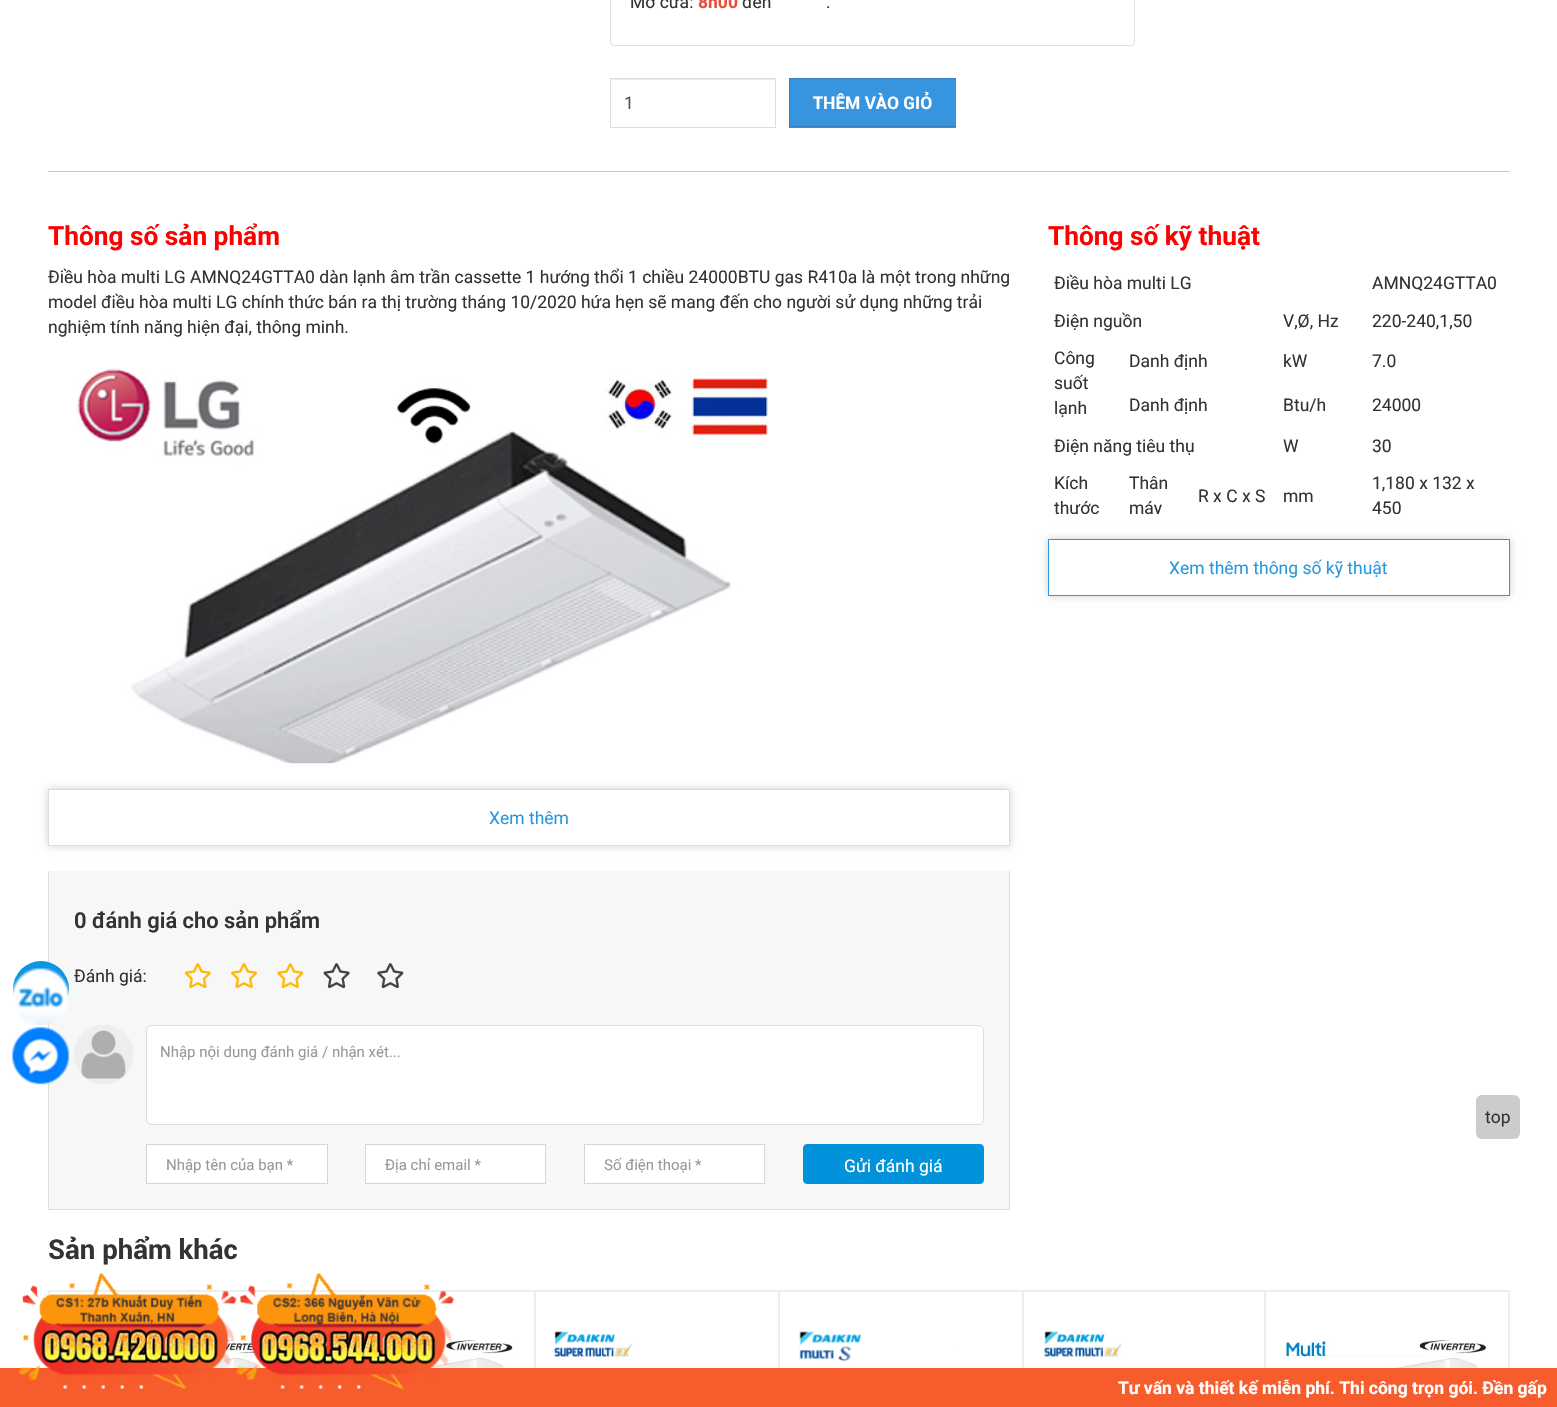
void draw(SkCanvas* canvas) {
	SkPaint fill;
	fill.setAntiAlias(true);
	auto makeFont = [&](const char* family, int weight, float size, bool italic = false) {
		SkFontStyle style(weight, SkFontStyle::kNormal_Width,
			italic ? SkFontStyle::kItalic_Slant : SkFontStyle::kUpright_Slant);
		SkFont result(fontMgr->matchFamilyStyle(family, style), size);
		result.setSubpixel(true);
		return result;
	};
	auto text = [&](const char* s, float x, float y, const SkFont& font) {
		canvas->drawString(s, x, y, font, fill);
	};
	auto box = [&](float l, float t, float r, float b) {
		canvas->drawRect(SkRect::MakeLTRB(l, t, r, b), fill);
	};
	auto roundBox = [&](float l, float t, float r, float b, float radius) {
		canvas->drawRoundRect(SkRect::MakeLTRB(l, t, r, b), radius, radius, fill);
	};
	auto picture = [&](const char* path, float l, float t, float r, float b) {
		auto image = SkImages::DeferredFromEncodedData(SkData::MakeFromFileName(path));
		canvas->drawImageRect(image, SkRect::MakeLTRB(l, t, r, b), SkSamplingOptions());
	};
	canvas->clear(0xFFFFFFFF);
	fill.setColor(0xFFF7F7F7);
	box(49, 871, 1009, 1209);
	fill.setColor(0xFFDEDEDE);
	box(1009, 871, 1010, 1210);
	box(48, 1209, 1010, 1210);
	box(48, 871, 49, 1210);
	fill.setColor(0xFF0D94E4);
	roundBox(13, 961, 69, 1018, 28);
	picture("image0.png", 13, 968, 69, 1026);
	picture("image1.png", 12, 1027, 70, 1085);
	fill.setStyle(SkPaint::kStroke_Style);
	fill.setStrokeWidth(1);
	fill.setColor(0xFFE3DEDE);
	canvas->drawRoundRect(SkRect::MakeLTRB(610.5f, -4.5f, 1134.5f, 45.5f), 3.5f, 3.5f, fill);
	fill.setStyle(SkPaint::kFill_Style);
	fill.setColor(0xFFECECEC);
	box(611, 79, 775, 80);
	fill.setStyle(SkPaint::kStroke_Style);
	fill.setColor(0xFFDDDDDD);
	canvas->drawRect(SkRect::MakeLTRB(610.5f, 78.5f, 775.5f, 127.5f), fill);
	fill.setStyle(SkPaint::kFill_Style);
	fill.setColor(0xFF3795DF);
	box(790, 79, 955, 128);
	fill.setColor(0xFF357EBD);
	box(789, 78, 956, 79);
	fill.setColor(0xFF3795DF);
	box(955, 78, 956, 128);
	fill.setColor(0xFF357EBD);
	box(789, 126, 956, 127);
	box(789, 78, 790, 128);
	fill.setColor(0xFFCCCCCC);
	box(48, 171, 1510, 172);
	picture("image2.png", 77, 368, 768, 764);
	canvas->save();
	canvas->clipPath(SkPathBuilder(SkPathFillType::kEvenOdd).moveTo(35, 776).lineTo(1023, 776).lineTo(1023, 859).lineTo(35, 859).close().moveTo(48, 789).lineTo(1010, 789).lineTo(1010, 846).lineTo(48, 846).close().detach(), true);
	fill.setColor(0xFFD0D0D0);
	fill.setMaskFilter(SkMaskFilter::MakeBlur(kNormal_SkBlurStyle, 4));
	canvas->drawRect(SkRect::MakeLTRB(48, 789, 1010, 846), fill);
	fill.setMaskFilter(nullptr);
	canvas->restore();
	fill.setStyle(SkPaint::kStroke_Style);
	fill.setColor(0xFFDDDDDD);
	canvas->drawRect(SkRect::MakeLTRB(48.5f, 789.5f, 1009.5f, 845.5f), fill);
	picture("image3.png", 184, 963, 211, 989);
	picture("image4.png", 231, 963, 258, 989);
	picture("image5.png", 277, 963, 304, 989);
	picture("image6.png", 323, 963, 350, 989);
	picture("image7.png", 377, 963, 404, 989);
	picture("image8.png", 74, 1025, 134, 1084);
	fill.setStyle(SkPaint::kFill_Style);
	fill.setColor(0xFFFFFFFF);
	canvas->drawRoundRect(SkRect::MakeLTRB(146.5f, 1025.5f, 983.5f, 1124.5f), 5.5f, 5.5f, fill);
	fill.setStyle(SkPaint::kStroke_Style);
	fill.setColor(0xFFDDDDDD);
	canvas->drawRoundRect(SkRect::MakeLTRB(146.5f, 1025.5f, 983.5f, 1124.5f), 5.5f, 5.5f, fill);
	fill.setStyle(SkPaint::kFill_Style);
	fill.setColor(0xFFFFFFFF);
	canvas->drawRect(SkRect::MakeLTRB(146.5f, 1144.5f, 327.5f, 1183.5f), fill);
	fill.setStyle(SkPaint::kStroke_Style);
	fill.setColor(0xFFD5D5D5);
	canvas->drawRect(SkRect::MakeLTRB(146.5f, 1144.5f, 327.5f, 1183.5f), fill);
	fill.setStyle(SkPaint::kFill_Style);
	fill.setColor(0xFFFFFFFF);
	canvas->drawRect(SkRect::MakeLTRB(365.5f, 1144.5f, 545.5f, 1183.5f), fill);
	fill.setStyle(SkPaint::kStroke_Style);
	fill.setColor(0xFFD5D5D5);
	canvas->drawRect(SkRect::MakeLTRB(365.5f, 1144.5f, 545.5f, 1183.5f), fill);
	fill.setStyle(SkPaint::kFill_Style);
	fill.setColor(0xFFFFFFFF);
	canvas->drawRect(SkRect::MakeLTRB(584.5f, 1144.5f, 764.5f, 1183.5f), fill);
	fill.setStyle(SkPaint::kStroke_Style);
	fill.setColor(0xFFD5D5D5);
	canvas->drawRect(SkRect::MakeLTRB(584.5f, 1144.5f, 764.5f, 1183.5f), fill);
	fill.setStyle(SkPaint::kFill_Style);
	fill.setColor(0xFF0092DB);
	canvas->drawRoundRect(SkRect::MakeLTRB(803.5f, 1144.5f, 983.5f, 1183.5f), 3.5f, 3.5f, fill);
	fill.setStyle(SkPaint::kStroke_Style);
	canvas->drawRoundRect(SkRect::MakeLTRB(803.5f, 1144.5f, 983.5f, 1183.5f), 3.5f, 3.5f, fill);
	canvas->save();
	canvas->clipPath(SkPathBuilder(SkPathFillType::kEvenOdd).moveTo(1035, 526).lineTo(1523, 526).lineTo(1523, 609).lineTo(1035, 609).close().moveTo(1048, 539).lineTo(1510, 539).lineTo(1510, 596).lineTo(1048, 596).close().detach(), true);
	fill.setStyle(SkPaint::kFill_Style);
	fill.setColor(0xFFD0D0D0);
	fill.setMaskFilter(SkMaskFilter::MakeBlur(kNormal_SkBlurStyle, 4));
	canvas->drawRect(SkRect::MakeLTRB(1048, 539, 1510, 596), fill);
	fill.setMaskFilter(nullptr);
	canvas->restore();
	fill.setStyle(SkPaint::kStroke_Style);
	fill.setColor(0xFF2898E1);
	canvas->drawRect(SkRect::MakeLTRB(1048.5f, 539.5f, 1509.5f, 595.5f), fill);
	fill.setColor(0xFFEEEEEE);
	canvas->drawRect(SkRect::MakeLTRB(48.5f, 1290.5f, 1509.5f, 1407.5f), fill);
	canvas->drawRect(SkRect::MakeLTRB(49.5f, 1291.5f, 292.5f, 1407.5f), fill);
	picture("image9.png", 211, 1340, 268, 1368);
	canvas->drawRect(SkRect::MakeLTRB(293.5f, 1291.5f, 534.5f, 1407.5f), fill);
	picture("image10.png", 429, 1340, 513, 1368);
	canvas->drawRect(SkRect::MakeLTRB(535.5f, 1291.5f, 778.5f, 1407.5f), fill);
	picture("image11.png", 554, 1331, 733, 1368);
	canvas->drawRect(SkRect::MakeLTRB(779.5f, 1291.5f, 1022.5f, 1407.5f), fill);
	picture("image12.png", 799, 1331, 984, 1368);
	canvas->drawRect(SkRect::MakeLTRB(1023.5f, 1291.5f, 1264.5f, 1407.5f), fill);
	picture("image13.png", 1044, 1331, 1222, 1368);
	canvas->drawRect(SkRect::MakeLTRB(1265.5f, 1291.5f, 1508.5f, 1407.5f), fill);
	picture("image14.png", 1285, 1340, 1486, 1368);
	fill.setStyle(SkPaint::kFill_Style);
	fill.setColor(0xFFCCCCCC);
	roundBox(1476, 1095, 1520, 1139, 6);
	fill.setColor(0xFFF75C2C);
	box(0, 1368, 1557, 1407);
	picture("image15.png", 18, 1273, 237, 1389);
	picture("image16.png", 236, 1273, 454, 1389);
	auto font1 = makeFont("Roboto", 400, 17.5f);
	fill.setColor(0xFF333333);
	text("Mở cửa:", 630, 8, font1);
	auto font2 = makeFont("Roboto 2", 700, 17.5f);
	fill.setColor(0xFFE74C3C);
	text("8h00", 698, 8, font2);
	fill.setColor(0xFF333333);
	text("đến", 742, 8, font1);
	text(".", 826, 8, font1);
	fill.setColor(0xFF555555);
	text("1", 624, 109, font1);
	auto font3 = makeFont("Roboto", 700, 17.5f);
	fill.setColor(0xFFFFFFFF);
	text("THÊM VÀO GIỎ", 813, 109, font3);
	auto font4 = makeFont("Roboto 2", 700, 26.25f);
	fill.setColor(0xFFFF0000);
	text("Thông số sản phẩm", 48, 245, font4);
	fill.setColor(0xFF333333);
	text("Điều hòa multi LG AMNQ24GTTA0 dàn lạnh âm trần cassette 1 hướng thổi 1 chiều 24000BTU gas R410a là một trong những", 48, 283, font1);
	text("model điều hòa multi LG chính thức bán ra thị trường tháng 10/2020 hứa hẹn sẽ mang đến cho người sử dụng những trải", 48, 308, font1);
	text("nghiệm tính năng hiện đại, thông minh.", 48, 333, font1);
	fill.setColor(0xFF2898E1);
	text("Xem thêm", 489, 824, font1);
	auto font5 = makeFont("Roboto", 600, 21.9f);
	fill.setColor(0xFF333333);
	text("0 đánh giá cho sản phẩm", 74, 928, font5);
	text("Đánh giá:", 74, 982, font1);
	auto font6 = makeFont("Roboto", 400, 15);
	fill.setColor(0xFF999999);
	text("Nhập nội dung đánh giá / nhận xét...", 160, 1057, font6);
	text("Nhập tên của bạn *", 166, 1170, font6);
	text("Địa chỉ email *", 385, 1170, font6);
	text("Số điện thoại *", 604, 1170, font6);
	fill.setColor(0xFFFFFFFF);
	text("Gửi đánh giá", 844, 1172, font1);
	fill.setColor(0xFFFF0000);
	text("Thông số kỹ thuật", 1048, 245, font4);
	fill.setColor(0xFF333333);
	text("Điều hòa multi LG", 1054, 289, font1);
	text("AMNQ24GTTA0", 1372, 289, font1);
	text("Điện nguồn", 1054, 327, font1);
	text("V,Ø, Hz", 1283, 327, font1);
	text("220-240,1,50", 1372, 327, font1);
	text("Công", 1054, 364, font1);
	text("suốt", 1054, 389, font1);
	text("lạnh", 1054, 414, font1);
	text("Danh định", 1129, 367, font1);
	text("kW", 1283, 367, font1);
	text("7.0", 1372, 367, font1);
	text("Danh định", 1129, 411, font1);
	text("Btu/h", 1283, 411, font1);
	text("24000", 1372, 411, font1);
	text("Điện năng tiêu thụ", 1054, 452, font1);
	text("W", 1283, 452, font1);
	text("30", 1372, 452, font1);
	text("Kích", 1054, 489, font1);
	canvas->save();
	canvas->clipRect(SkRect::MakeLTRB(1048, 264, 1510, 514));
	text("thước", 1054, 514, font1);
	canvas->restore();
	text("Thân", 1129, 489, font1);
	canvas->save();
	canvas->clipRect(SkRect::MakeLTRB(1048, 264, 1510, 514));
	text("máy", 1129, 514, font1);
	canvas->restore();
	text("R x C x S", 1198, 502, font1);
	text("mm", 1283, 502, font1);
	text("1,180 x 132 x", 1372, 489, font1);
	canvas->save();
	canvas->clipRect(SkRect::MakeLTRB(1048, 264, 1510, 514));
	text("450", 1372, 514, font1);
	canvas->restore();
	fill.setColor(0xFF2898E1);
	text("Xem thêm thông số kỹ thuật", 1169, 574, font1);
	auto font7 = makeFont("Roboto", 700, 27.5f);
	fill.setColor(0xFF333333);
	text("Sản phẩm khác", 48, 1259, font7);
	text("top", 1485, 1123, font1);
	fill.setColor(0xFFFFFFFF);
	text("Tư vấn và thiết kế miễn phí. Thi công trọn gói. Đền gấp", 1118, 1394, font2);
}
